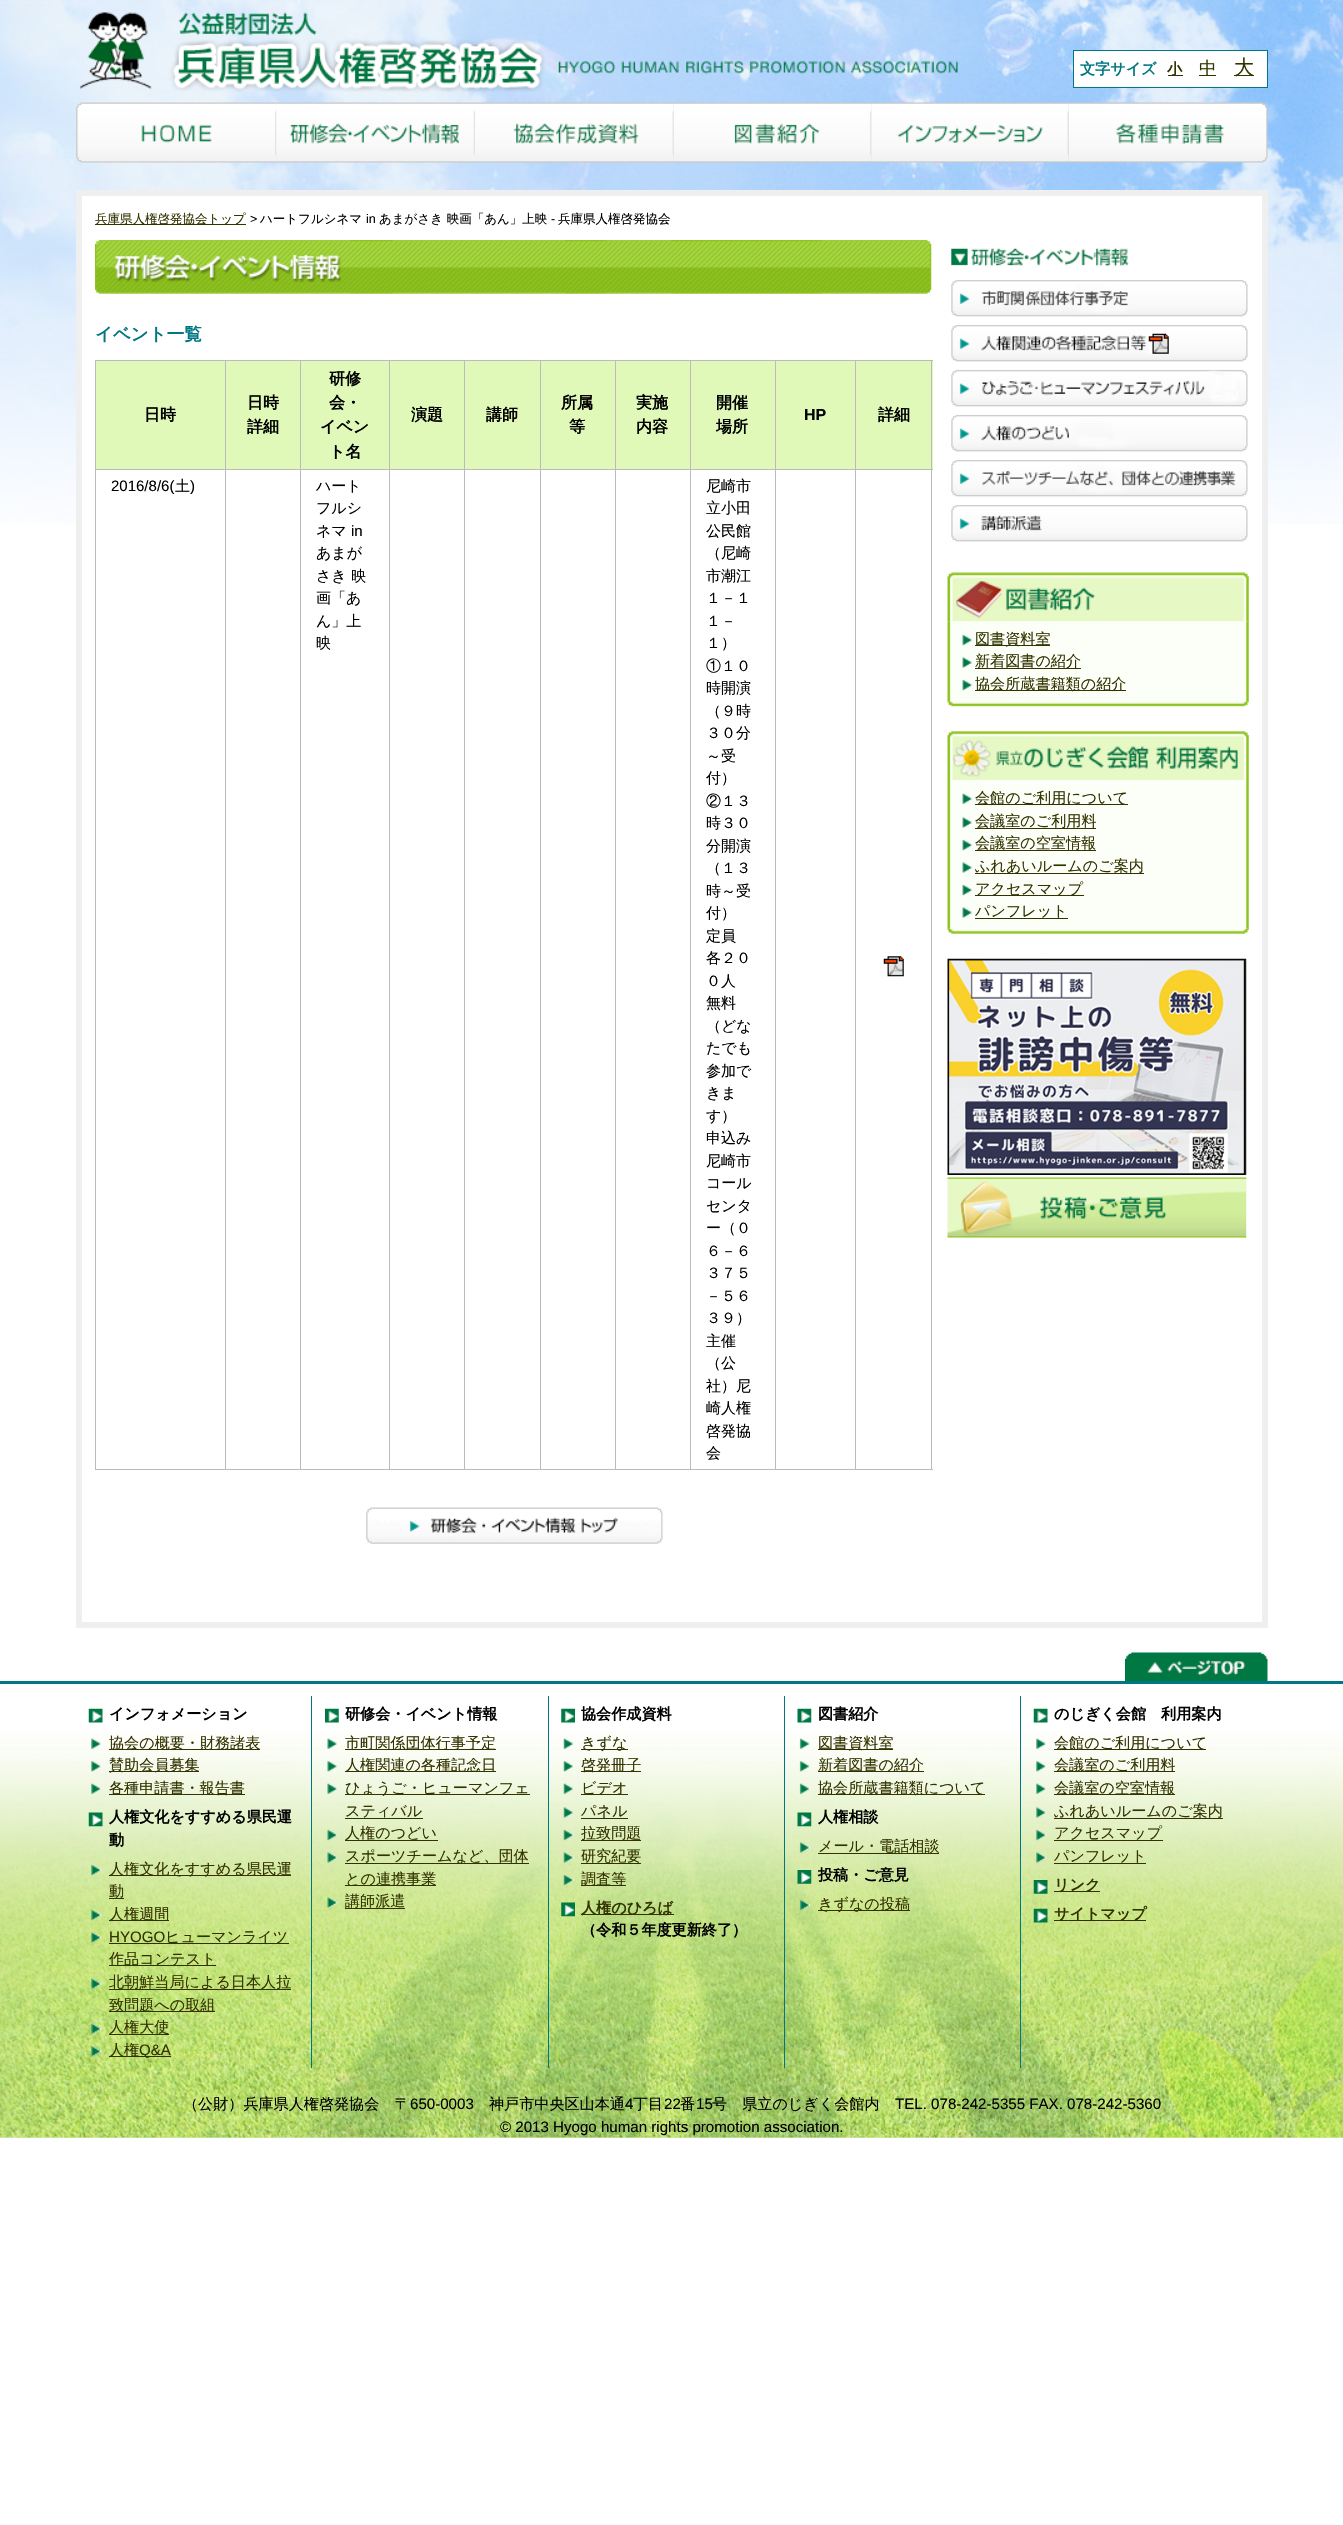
void draw(SkCanvas* canvas) {
	SkPaint fill;
	fill.setAntiAlias(true);
	auto makeFont = [&](const char* family, int weight, float size, bool italic = false) {
		SkFontStyle style(weight, SkFontStyle::kNormal_Width,
			italic ? SkFontStyle::kItalic_Slant : SkFontStyle::kUpright_Slant);
		SkFont result(fontMgr->matchFamilyStyle(family, style), size);
		result.setSubpixel(true);
		return result;
	};
	auto text = [&](const char* s, float x, float y, const SkFont& font) {
		canvas->drawString(s, x, y, font, fill);
	};
	auto box = [&](float l, float t, float r, float b) {
		canvas->drawRect(SkRect::MakeLTRB(l, t, r, b), fill);
	};
	auto picture = [&](const char* path, float l, float t, float r, float b) {
		auto image = SkImages::DeferredFromEncodedData(SkData::MakeFromFileName(path));
		canvas->drawImageRect(image, SkRect::MakeLTRB(l, t, r, b), SkSamplingOptions());
	};
	canvas->clear(0xFFFFFFFF);
	picture("image0.png", 0, 1731, 1343, 2138);
	picture("image1.png", 0, 0, 1343, 524);
	picture("image2.png", 0, 1751, 1343, 2138);
	picture("image3.png", 79, 12, 958, 92);
	fill.setColor(0xFFFFFFFF);
	canvas->drawRect(SkRect::MakeLTRB(1073.5f, 50.5f, 1267.5f, 87.5f), fill);
	fill.setStyle(SkPaint::kStroke_Style);
	fill.setStrokeWidth(1);
	fill.setColor(0xFF007783);
	canvas->drawRect(SkRect::MakeLTRB(1073.5f, 50.5f, 1267.5f, 87.5f), fill);
	fill.setStyle(SkPaint::kFill_Style);
	fill.setColor(0xFF333300);
	box(1168, 75, 1183, 76);
	box(1199, 75, 1216, 76);
	box(1234, 75, 1254, 76);
	picture("image4.png", 76, 102, 277, 163);
	picture("image5.png", 276, 102, 475, 163);
	picture("image6.png", 475, 102, 674, 163);
	picture("image7.png", 673, 102, 872, 163);
	picture("image8.png", 871, 102, 1069, 163);
	picture("image9.png", 1068, 102, 1268, 163);
	fill.setColor(0xFFFFFFFF);
	box(82, 196, 1262, 524);
	fill.setStyle(SkPaint::kStroke_Style);
	fill.setStrokeWidth(6);
	fill.setColor(0xFFEFEFEF);
	canvas->drawRect(SkRect::MakeLTRB(79, 193, 1265, 1625), fill);
	fill.setStyle(SkPaint::kFill_Style);
	fill.setColor(0xFF333300);
	box(95, 224, 246, 225);
	picture("image10.png", 95, 240, 932, 294);
	fill.setColor(0xFFE0F8B8);
	box(96, 361, 225, 469);
	fill.setColor(0xFFBBBBBB);
	box(855, 360, 933, 361);
	box(855, 469, 933, 470);
	box(931, 469, 932, 1470);
	box(855, 1469, 933, 1470);
	box(855, 469, 856, 1470);
	box(775, 469, 856, 470);
	box(855, 360, 856, 470);
	box(775, 360, 856, 361);
	box(775, 1469, 856, 1470);
	box(775, 469, 776, 1470);
	box(690, 469, 776, 470);
	box(775, 360, 776, 470);
	box(690, 360, 776, 361);
	box(690, 1469, 776, 1470);
	box(690, 469, 691, 1470);
	box(615, 469, 691, 470);
	box(690, 360, 691, 470);
	box(615, 360, 691, 361);
	box(615, 1469, 691, 1470);
	box(615, 469, 616, 1470);
	box(540, 469, 616, 470);
	box(615, 360, 616, 470);
	box(540, 360, 616, 361);
	box(540, 1469, 616, 1470);
	box(540, 469, 541, 1470);
	box(464, 469, 541, 470);
	box(540, 360, 541, 470);
	box(464, 360, 541, 361);
	box(464, 1469, 541, 1470);
	box(464, 469, 465, 1470);
	box(389, 469, 465, 470);
	box(464, 360, 465, 470);
	box(389, 360, 465, 361);
	box(389, 1469, 465, 1470);
	box(389, 469, 390, 1470);
	box(300, 469, 390, 470);
	box(389, 360, 390, 470);
	box(300, 360, 390, 361);
	box(300, 1469, 390, 1470);
	box(300, 469, 301, 1470);
	box(225, 469, 301, 470);
	box(300, 360, 301, 470);
	box(225, 360, 301, 361);
	box(225, 1469, 301, 1470);
	box(225, 469, 226, 1470);
	box(95, 469, 226, 470);
	box(225, 360, 226, 470);
	box(95, 360, 226, 361);
	box(95, 1469, 226, 1470);
	box(95, 469, 96, 1470);
	box(95, 360, 96, 470);
	fill.setColor(0xFFE0F8B8);
	box(226, 361, 300, 469);
	box(301, 361, 389, 469);
	box(390, 361, 464, 469);
	box(465, 361, 540, 469);
	box(541, 361, 615, 469);
	box(616, 361, 690, 469);
	box(691, 361, 775, 469);
	box(776, 361, 855, 469);
	box(856, 361, 933, 469);
	fill.setColor(0xFFBBBBBB);
	box(931, 360, 932, 470);
	picture("image11.png", 883, 956, 904, 977);
	picture("image12.png", 366, 1507, 663, 1544);
	picture("image13.png", 951, 248, 1129, 267);
	picture("image14.png", 951, 280, 1248, 317);
	picture("image15.png", 951, 325, 1248, 362);
	picture("image16.png", 951, 369, 1248, 407);
	picture("image17.png", 951, 415, 1248, 452);
	picture("image18.png", 951, 460, 1248, 497);
	picture("image19.png", 951, 505, 1248, 542);
	picture("image21.png", 947, 701, 1249, 707);
	picture("image22.png", 947, 621, 1249, 702);
	picture("image20.png", 947, 572, 1249, 622);
	picture("image23.png", 962, 634, 973, 646);
	fill.setColor(0xFF333300);
	box(975, 645, 1050, 646);
	picture("image24.png", 962, 657, 973, 668);
	box(975, 668, 1081, 669);
	picture("image23.png", 962, 679, 973, 691);
	box(975, 690, 1126, 691);
	picture("image25.png", 947, 731, 1249, 780);
	picture("image26.png", 947, 928, 1249, 934);
	picture("image27.png", 947, 780, 1249, 929);
	picture("image28.png", 962, 793, 973, 804);
	box(975, 804, 1128, 805);
	picture("image24.png", 962, 817, 973, 828);
	box(975, 828, 1096, 829);
	picture("image23.png", 962, 839, 973, 851);
	box(975, 850, 1096, 851);
	picture("image24.png", 962, 862, 973, 873);
	box(975, 873, 1144, 874);
	picture("image23.png", 962, 884, 973, 896);
	box(975, 895, 1084, 896);
	picture("image24.png", 962, 907, 973, 918);
	box(975, 918, 1068, 919);
	picture("image29.png", 947, 958, 1247, 1175);
	picture("image30.png", 947, 1177, 1247, 1238);
	fill.setColor(0xFF007783);
	box(0, 1681, 1343, 1684);
	picture("image31.png", 1125, 1652, 1268, 1682);
	picture("image32.png", 88, 1708, 103, 1723);
	picture("image33.png", 91, 1738, 101, 1749);
	fill.setColor(0xFF333300);
	box(109, 1749, 260, 1750);
	picture("image34.png", 91, 1761, 101, 1772);
	box(109, 1771, 199, 1772);
	picture("image35.png", 91, 1783, 102, 1794);
	box(109, 1794, 245, 1795);
	picture("image36.png", 88, 1812, 103, 1827);
	picture("image37.png", 91, 1864, 102, 1876);
	box(109, 1875, 291, 1876);
	box(109, 1898, 124, 1899);
	picture("image38.png", 91, 1909, 102, 1921);
	box(109, 1920, 169, 1921);
	picture("image39.png", 91, 1932, 102, 1943);
	box(109, 1943, 289, 1944);
	box(109, 1965, 216, 1966);
	picture("image40.png", 91, 1978, 102, 1989);
	box(109, 1989, 291, 1990);
	box(109, 2011, 215, 2012);
	picture("image41.png", 91, 2023, 102, 2034);
	box(109, 2034, 169, 2035);
	picture("image42.png", 91, 2046, 102, 2057);
	box(109, 2056, 171, 2057);
	fill.setColor(0xFF007783);
	box(311, 1696, 312, 2068);
	picture("image43.png", 325, 1708, 339, 1723);
	picture("image44.png", 327, 1738, 338, 1749);
	fill.setColor(0xFF333300);
	box(345, 1749, 496, 1750);
	picture("image45.png", 327, 1761, 338, 1772);
	box(345, 1771, 496, 1772);
	picture("image46.png", 327, 1783, 338, 1794);
	box(345, 1794, 530, 1795);
	box(345, 1818, 423, 1819);
	picture("image47.png", 327, 1829, 338, 1841);
	box(345, 1840, 438, 1841);
	picture("image48.png", 327, 1852, 338, 1863);
	box(345, 1863, 529, 1864);
	box(345, 1885, 436, 1886);
	picture("image49.png", 327, 1897, 338, 1908);
	box(345, 1908, 405, 1909);
	fill.setColor(0xFF007783);
	box(548, 1696, 549, 2068);
	picture("image50.png", 561, 1708, 575, 1723);
	picture("image51.png", 563, 1738, 574, 1749);
	fill.setColor(0xFF333300);
	box(581, 1749, 628, 1750);
	picture("image52.png", 563, 1761, 574, 1772);
	box(581, 1771, 641, 1772);
	picture("image53.png", 563, 1783, 574, 1794);
	box(581, 1794, 628, 1795);
	picture("image54.png", 563, 1807, 574, 1818);
	box(581, 1818, 628, 1819);
	picture("image55.png", 563, 1829, 574, 1841);
	box(581, 1840, 641, 1841);
	picture("image56.png", 563, 1852, 574, 1863);
	box(581, 1863, 641, 1864);
	picture("image57.png", 563, 1874, 574, 1886);
	box(581, 1885, 626, 1886);
	picture("image58.png", 561, 1902, 575, 1917);
	box(581, 1914, 674, 1915);
	fill.setColor(0xFF007783);
	box(784, 1696, 785, 2068);
	picture("image59.png", 797, 1708, 812, 1723);
	picture("image60.png", 799, 1738, 810, 1749);
	fill.setColor(0xFF333300);
	box(818, 1749, 893, 1750);
	picture("image61.png", 799, 1761, 810, 1772);
	box(818, 1771, 924, 1772);
	picture("image62.png", 799, 1783, 810, 1794);
	box(818, 1794, 985, 1795);
	picture("image63.png", 797, 1812, 812, 1827);
	picture("image64.png", 799, 1842, 810, 1853);
	box(818, 1853, 939, 1854);
	picture("image65.png", 797, 1870, 812, 1884);
	picture("image66.png", 799, 1899, 810, 1911);
	box(818, 1910, 910, 1911);
	fill.setColor(0xFF007783);
	box(1020, 1696, 1021, 2068);
	picture("image67.png", 1033, 1708, 1048, 1723);
	picture("image68.png", 1036, 1738, 1046, 1749);
	fill.setColor(0xFF333300);
	box(1054, 1749, 1206, 1750);
	picture("image69.png", 1036, 1761, 1046, 1772);
	box(1054, 1771, 1175, 1772);
	picture("image70.png", 1036, 1783, 1047, 1794);
	box(1054, 1794, 1175, 1795);
	picture("image71.png", 1036, 1807, 1047, 1818);
	box(1054, 1818, 1223, 1819);
	picture("image72.png", 1036, 1829, 1047, 1841);
	box(1054, 1840, 1163, 1841);
	picture("image73.png", 1036, 1852, 1047, 1863);
	box(1054, 1863, 1146, 1864);
	picture("image74.png", 1033, 1880, 1048, 1894);
	box(1054, 1891, 1100, 1892);
	picture("image75.png", 1033, 1908, 1048, 1923);
	box(1054, 1920, 1146, 1921);
	auto font1 = makeFont("WenQuanYi Zen Hei", 700, 15.1f);
	fill.setColor(0xFF007783);
	text("文字サイズ", 1080, 74, font1);
	fill.setColor(0xFF333300);
	text("小", 1167, 74, font1);
	auto font2 = makeFont("WenQuanYi Zen Hei", 500, 17.5f);
	text("中", 1199, 74, font2);
	auto font3 = makeFont("WenQuanYi Zen Hei", 500, 20);
	text("大", 1234, 74, font3);
	auto font4 = makeFont("WenQuanYi Zen Hei", 500, 12.5f);
	text("兵庫県人権啓発協会トップ", 95, 223, font4);
	auto font5 = makeFont("Liberation Sans", 400, 12.5f);
	fill.setColor(0xFF000000);
	text(">", 250, 223, font5);
	text("ハートフルシネマ", 260, 223, font4);
	text("in", 366, 223, font5);
	text("あまがさき 映画「あん」上映", 379, 223, font4);
	text("-", 551, 223, font5);
	text("兵庫県人権啓発協会", 558, 223, font4);
	auto font6 = makeFont("WenQuanYi Zen Hei", 700, 17.5f);
	fill.setColor(0xFF007783);
	text("イベント一覧", 95, 340, font6);
	auto font7 = makeFont("WenQuanYi Zen Hei", 700, 16);
	fill.setColor(0xFF000000);
	text("日時", 144, 420, font7);
	text("日時", 247, 408, font7);
	text("詳細", 247, 432, font7);
	text("研修", 329, 384, font7);
	text("会・", 329, 408, font7);
	text("イベン", 320, 432, font7);
	text("ト名", 329, 457, font7);
	text("演題", 411, 420, font7);
	text("講師", 486, 420, font7);
	text("所属", 561, 408, font7);
	text("等", 569, 432, font7);
	text("実施", 636, 408, font7);
	text("内容", 636, 432, font7);
	text("開催", 716, 408, font7);
	text("場所", 716, 432, font7);
	auto font8 = makeFont("Liberation Sans", 700, 16);
	text("HP", 804, 420, font8);
	text("詳細", 878, 420, font7);
	auto font9 = makeFont("Liberation Sans", 400, 15);
	text("2016/8/6(", 111, 491, font9);
	auto font10 = makeFont("WenQuanYi Zen Hei", 500, 15);
	text("土", 175, 491, font10);
	text(")", 190, 491, font9);
	text("ハート", 316, 491, font10);
	text("フルシ", 316, 513, font10);
	text("ネマ", 316, 536, font10);
	text("in", 351, 536, font9);
	text("あまが", 316, 558, font10);
	text("さき 映", 316, 581, font10);
	text("画「あ", 316, 603, font10);
	text("ん」上", 316, 626, font10);
	text("映", 316, 648, font10);
	text("尼崎市", 706, 491, font10);
	text("立小田", 706, 513, font10);
	text("公民館", 706, 536, font10);
	text("（尼崎", 706, 558, font10);
	text("市潮江", 706, 581, font10);
	text("１－１", 706, 603, font10);
	text("１－", 706, 626, font10);
	text("１）", 706, 648, font10);
	text("①１０", 706, 671, font10);
	text("時開演", 706, 693, font10);
	text("（９時", 706, 716, font10);
	text("３０分", 706, 738, font10);
	text("～受", 706, 761, font10);
	text("付）", 706, 783, font10);
	text("②１３", 706, 806, font10);
	text("時３０", 706, 828, font10);
	text("分開演", 706, 851, font10);
	text("（１３", 706, 873, font10);
	text("時～受", 706, 896, font10);
	text("付）", 706, 918, font10);
	text("定員", 706, 941, font10);
	text("各２０", 706, 963, font10);
	text("０人", 706, 986, font10);
	text("無料", 706, 1008, font10);
	text("（どな", 706, 1031, font10);
	text("たでも", 706, 1053, font10);
	text("参加で", 706, 1076, font10);
	text("きま", 706, 1098, font10);
	text("す）", 706, 1121, font10);
	text("申込み", 706, 1143, font10);
	text("尼崎市", 706, 1166, font10);
	text("コール", 706, 1188, font10);
	text("センタ", 706, 1211, font10);
	text("ー（０", 706, 1233, font10);
	text("６－６", 706, 1256, font10);
	text("３７５", 706, 1278, font10);
	text("－５６", 706, 1301, font10);
	text("３９）", 706, 1323, font10);
	text("主催", 706, 1346, font10);
	text("（公", 706, 1368, font10);
	text("社）尼", 706, 1391, font10);
	text("崎人権", 706, 1413, font10);
	text("啓発協", 706, 1436, font10);
	text("会", 706, 1458, font10);
	auto font11 = makeFont("WenQuanYi Zen Hei", 500, 15.1f);
	fill.setColor(0xFF333300);
	text("図書資料室", 975, 644, font11);
	text("新着図書の紹介", 975, 666, font11);
	text("協会所蔵書籍類の紹介", 975, 689, font11);
	text("会館のご利用について", 975, 803, font11);
	text("会議室のご利用料", 975, 826, font11);
	text("会議室の空室情報", 975, 848, font11);
	text("ふれあいルームのご案内", 975, 871, font11);
	text("アクセスマップ", 975, 894, font11);
	text("パンフレット", 975, 916, font11);
	fill.setColor(0xFF000000);
	text("インフォメーション", 109, 1719, font1);
	fill.setColor(0xFF333300);
	text("協会の概要・財務諸表", 109, 1748, font11);
	text("賛助会員募集", 109, 1770, font11);
	text("各種申請書・報告書", 109, 1793, font11);
	fill.setColor(0xFF000000);
	text("人権文化をすすめる県民運", 109, 1822, font1);
	text("動", 109, 1845, font1);
	fill.setColor(0xFF333300);
	text("人権文化をすすめる県民運", 109, 1874, font11);
	text("動", 109, 1896, font11);
	text("人権週間", 109, 1919, font11);
	auto font12 = makeFont("Liberation Sans", 400, 15.1f);
	text("HYOGO", 109, 1942, font12);
	text("ヒューマンライツ", 165, 1942, font11);
	text("作品コンテスト", 109, 1964, font11);
	text("北朝鮮当局による日本人拉", 109, 1987, font11);
	text("致問題への取組", 109, 2010, font11);
	text("人権大使", 109, 2032, font11);
	text("人権", 109, 2055, font11);
	text("Q&A", 139, 2055, font12);
	fill.setColor(0xFF000000);
	text("研修会・イベント情報", 345, 1719, font1);
	fill.setColor(0xFF333300);
	text("市町関係団体行事予定", 345, 1748, font11);
	text("人権関連の各種記念日", 345, 1770, font11);
	text("ひょうご・ヒューマンフェ", 345, 1793, font11);
	text("スティバル", 345, 1816, font11);
	text("人権のつどい", 345, 1838, font11);
	text("スポーツチームなど、団体", 345, 1861, font11);
	text("との連携事業", 345, 1884, font11);
	text("講師派遣", 345, 1906, font11);
	fill.setColor(0xFF000000);
	text("協会作成資料", 581, 1719, font1);
	fill.setColor(0xFF333300);
	text("きずな", 581, 1748, font11);
	text("啓発冊子", 581, 1770, font11);
	text("ビデオ", 581, 1793, font11);
	text("パネル", 581, 1816, font11);
	text("拉致問題", 581, 1838, font11);
	text("研究紀要", 581, 1861, font11);
	text("調査等", 581, 1884, font11);
	text("人権のひろば", 581, 1913, font1);
	fill.setColor(0xFF000000);
	text("（令和５年度更新終了）", 581, 1935, font1);
	text("図書紹介", 818, 1719, font1);
	fill.setColor(0xFF333300);
	text("図書資料室", 818, 1748, font11);
	text("新着図書の紹介", 818, 1770, font11);
	text("協会所蔵書籍類について", 818, 1793, font11);
	fill.setColor(0xFF000000);
	text("人権相談", 818, 1822, font1);
	fill.setColor(0xFF333300);
	text("メール・電話相談", 818, 1851, font11);
	fill.setColor(0xFF000000);
	text("投稿・ご意見", 818, 1880, font1);
	fill.setColor(0xFF333300);
	text("きずなの投稿", 818, 1909, font11);
	fill.setColor(0xFF000000);
	text("のじぎく会館　利用案内", 1054, 1719, font1);
	fill.setColor(0xFF333300);
	text("会館のご利用について", 1054, 1748, font11);
	text("会議室のご利用料", 1054, 1770, font11);
	text("会議室の空室情報", 1054, 1793, font11);
	text("ふれあいルームのご案内", 1054, 1816, font11);
	text("アクセスマップ", 1054, 1838, font11);
	text("パンフレット", 1054, 1861, font11);
	text("リンク", 1054, 1890, font1);
	text("サイトマップ", 1054, 1919, font1);
	fill.setColor(0xFF000000);
	text("（公財）兵庫県人権啓発協会　〒", 183, 2109, font11);
	text("650-0003", 410, 2109, font12);
	text("神戸市中央区山本通", 489, 2109, font11);
	text("4", 625, 2109, font12);
	text("丁目", 633, 2109, font11);
	text("22", 664, 2109, font12);
	text("番", 680, 2109, font11);
	text("15", 696, 2109, font12);
	text("号　県立のじぎく会館内", 712, 2109, font11);
	text("TEL. 078-242-5355 FAX. 078-242-5360", 895, 2109, font12);
	text("© 2013 Hyogo human rights promotion association.", 500, 2132, font12);
}
